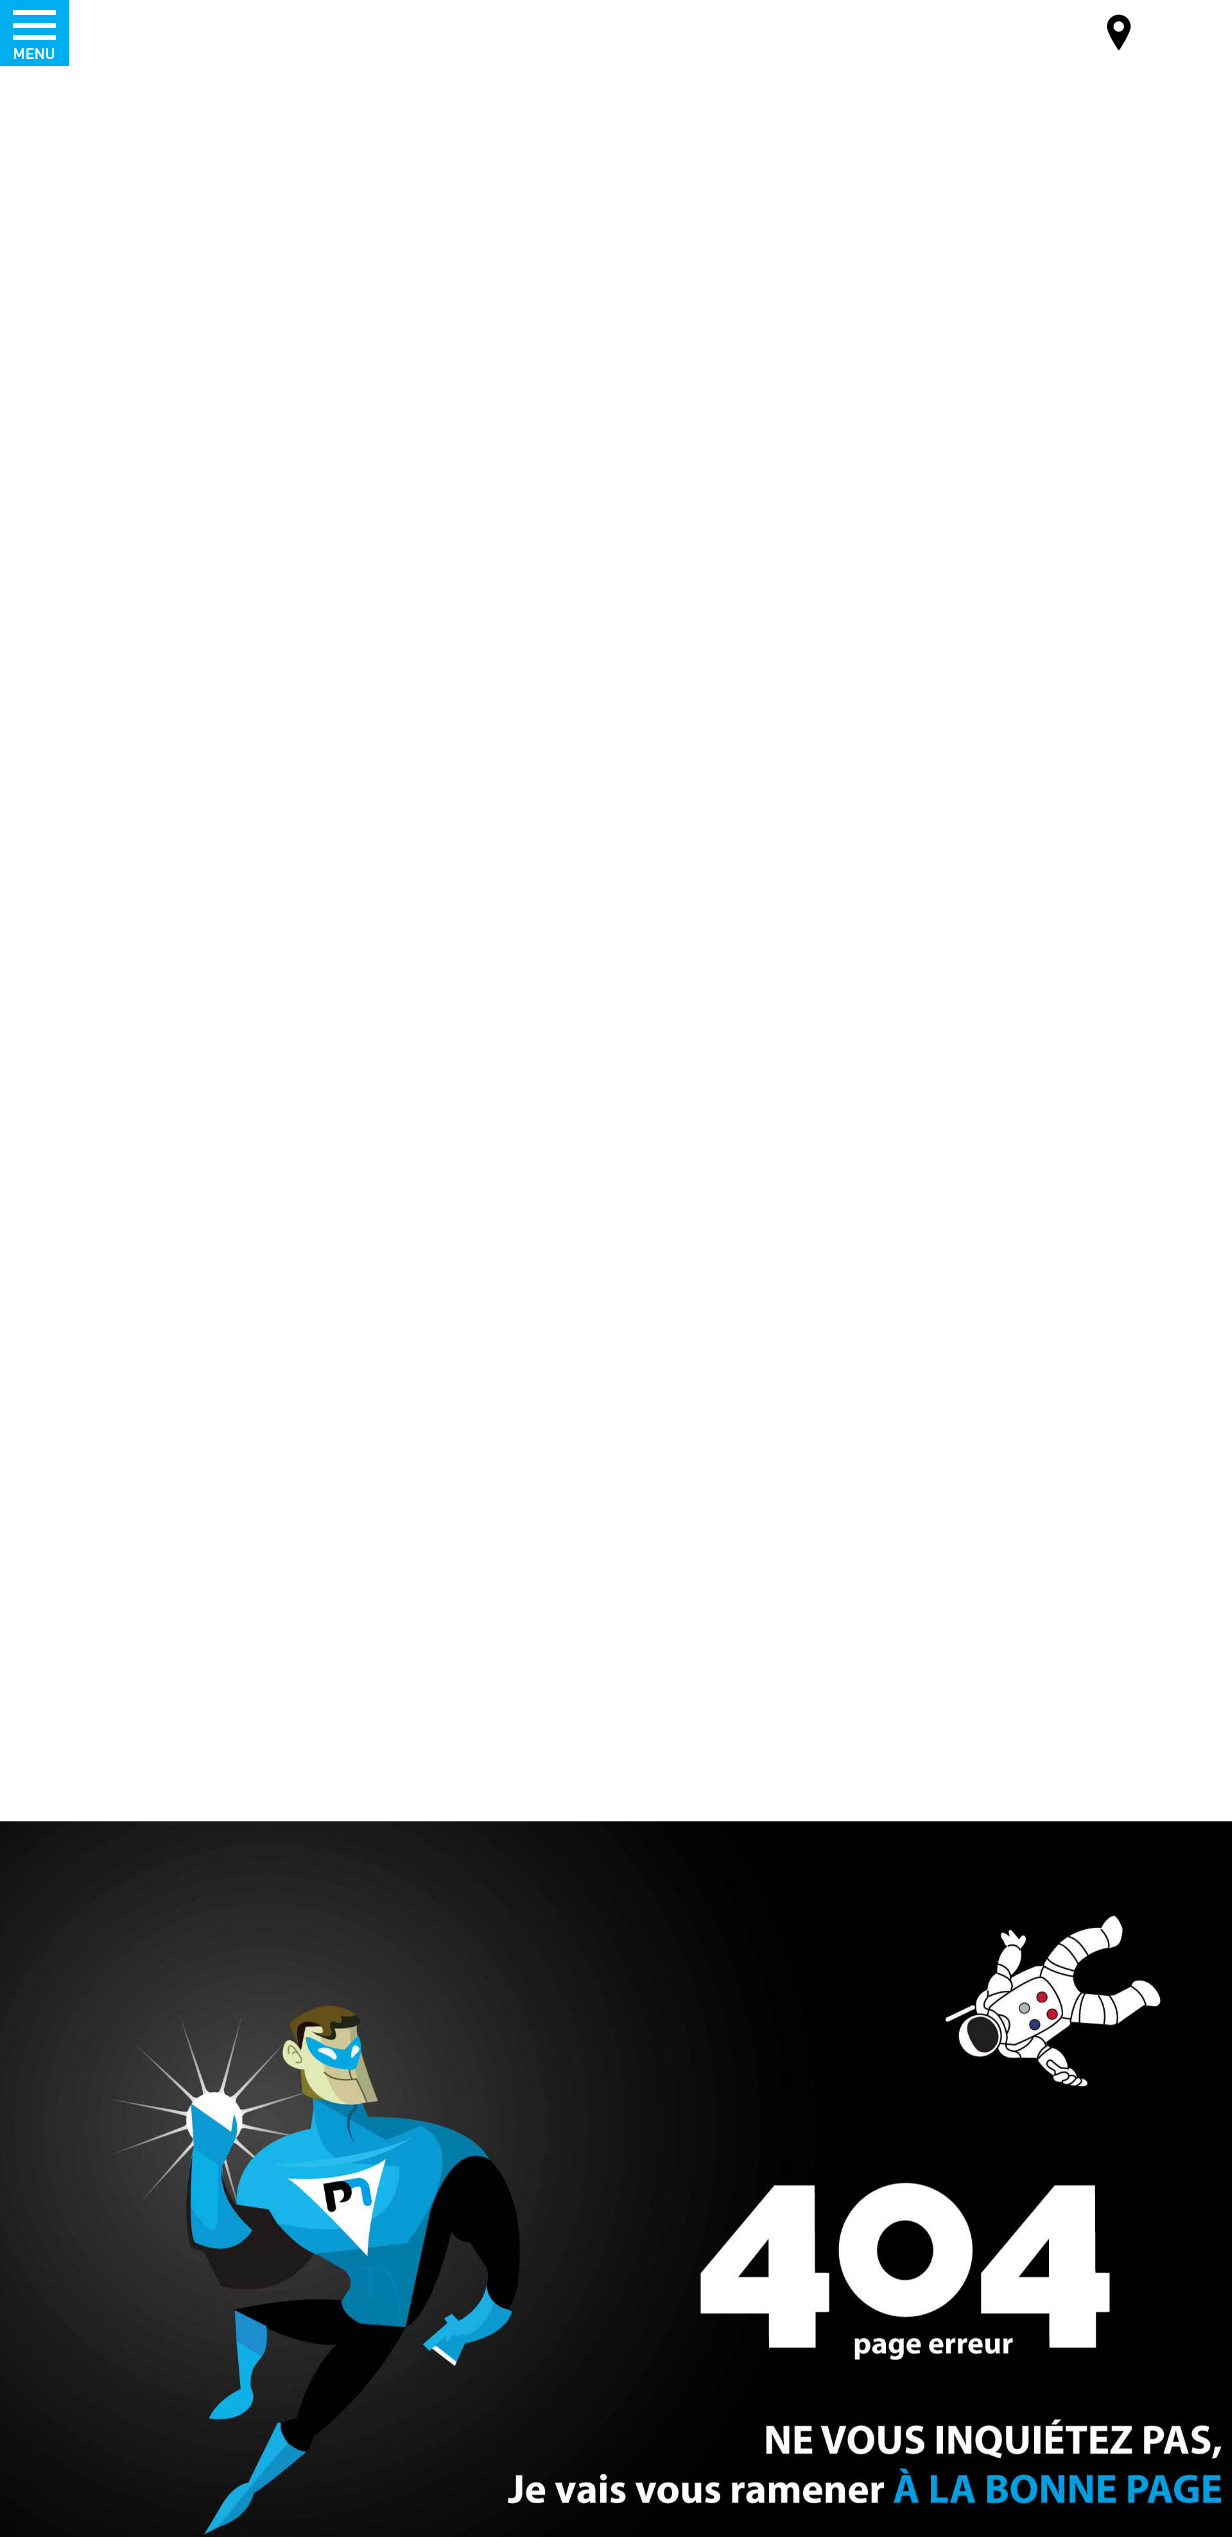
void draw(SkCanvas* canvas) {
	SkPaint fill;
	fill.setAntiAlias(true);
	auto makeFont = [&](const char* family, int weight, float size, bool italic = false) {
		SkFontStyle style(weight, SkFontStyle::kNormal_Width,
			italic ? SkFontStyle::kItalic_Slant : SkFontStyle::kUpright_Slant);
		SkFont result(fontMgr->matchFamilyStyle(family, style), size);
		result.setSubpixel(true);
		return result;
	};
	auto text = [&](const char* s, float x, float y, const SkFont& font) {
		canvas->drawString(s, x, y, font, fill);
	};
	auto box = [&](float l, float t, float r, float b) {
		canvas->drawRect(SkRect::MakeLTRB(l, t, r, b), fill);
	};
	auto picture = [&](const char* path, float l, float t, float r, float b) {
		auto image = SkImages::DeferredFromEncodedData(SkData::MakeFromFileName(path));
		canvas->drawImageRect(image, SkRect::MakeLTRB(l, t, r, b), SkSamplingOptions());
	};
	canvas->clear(0xFFFFFFFF);
	picture("image0.png", 0, 1821, 1232, 2537);
	picture("image1.png", 1106, 14, 1131, 51);
	fill.setColor(0xFF00AEEF);
	box(0, 0, 69, 66);
	fill.setColor(0xFFFFFFFF);
	box(13, 10, 56, 15);
	box(13, 23, 56, 28);
	box(13, 35, 56, 40);
	auto font1 = makeFont("DIN", 500, 15);
	text("MENU", 13, 59, font1);
}
